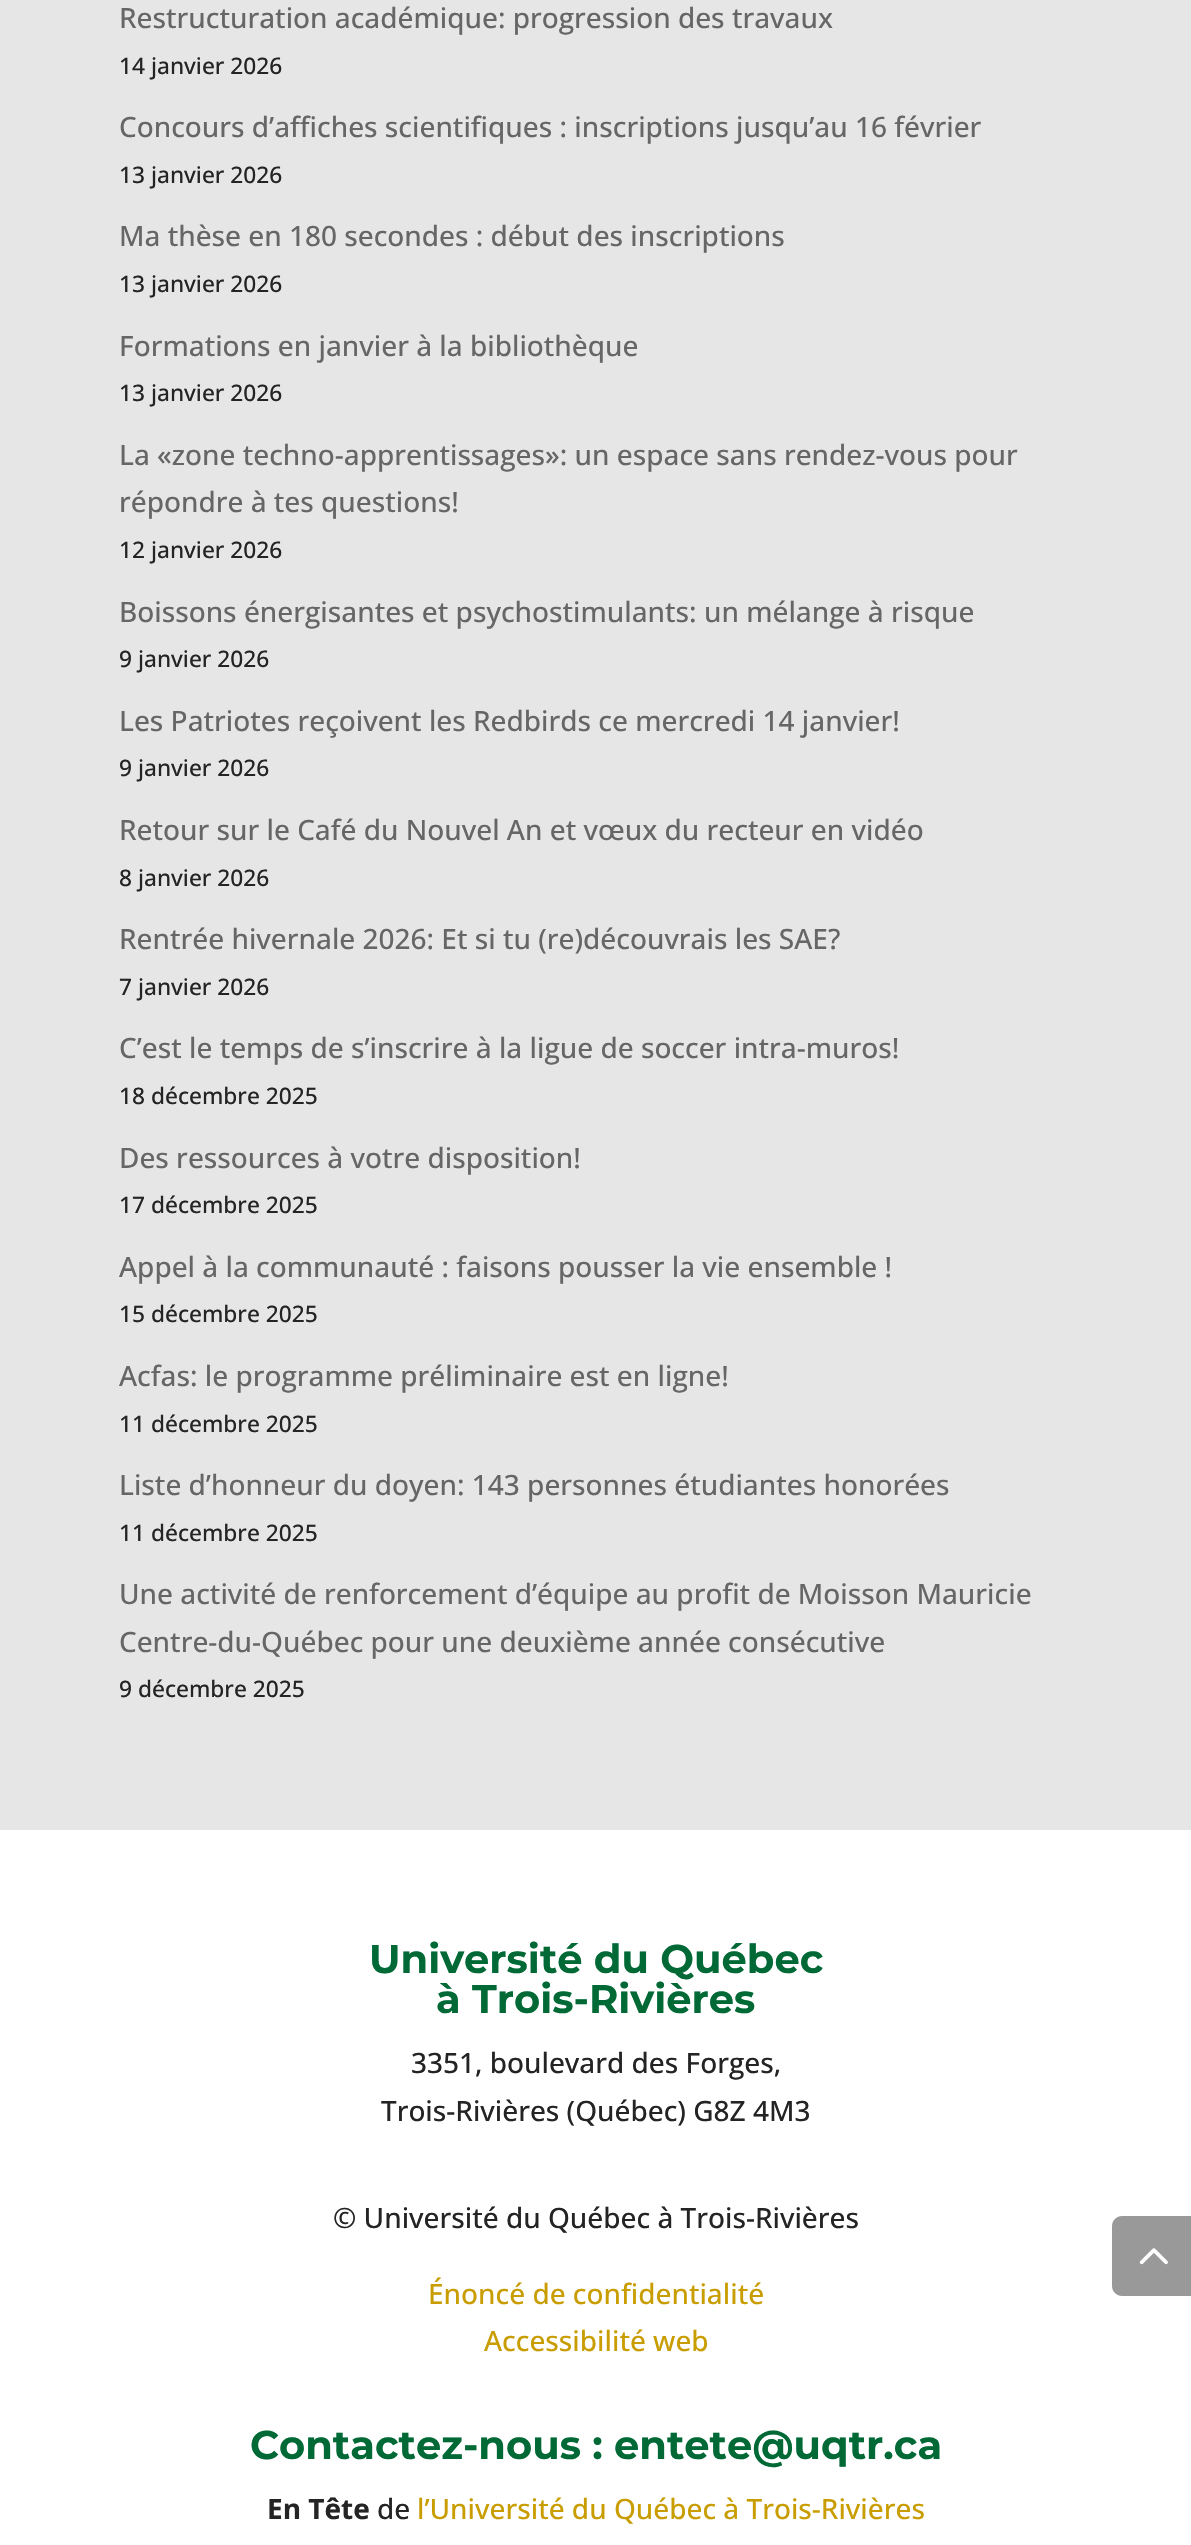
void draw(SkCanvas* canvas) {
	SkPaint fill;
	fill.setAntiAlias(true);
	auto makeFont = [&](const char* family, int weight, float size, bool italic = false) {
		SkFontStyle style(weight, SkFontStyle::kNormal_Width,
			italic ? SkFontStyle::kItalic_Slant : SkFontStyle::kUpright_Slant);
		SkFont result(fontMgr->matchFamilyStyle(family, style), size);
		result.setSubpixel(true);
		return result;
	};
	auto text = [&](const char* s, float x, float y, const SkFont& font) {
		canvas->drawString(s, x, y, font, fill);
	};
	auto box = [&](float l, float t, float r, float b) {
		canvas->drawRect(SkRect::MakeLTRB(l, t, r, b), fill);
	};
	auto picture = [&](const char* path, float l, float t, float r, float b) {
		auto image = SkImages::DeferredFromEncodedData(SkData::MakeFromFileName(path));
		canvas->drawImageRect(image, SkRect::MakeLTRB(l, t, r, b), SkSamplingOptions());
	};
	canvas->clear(0xFFE6E6E6);
	fill.setColor(0xFFFFFFFF);
	box(0, 1830, 1191, 2545);
	fill.setColor(0xFF999999);
	canvas->drawPath(SkPathBuilder().moveTo(1122, 2216).lineTo(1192, 2216).lineTo(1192, 2296).lineTo(1122, 2296).cubicTo(1116.5f, 2296, 1112, 2291.5f, 1112, 2286).lineTo(1112, 2226).cubicTo(1112, 2220.5f, 1116.5f, 2216, 1122, 2216).close().detach(), fill);
	picture("image0.png", 1139, 2248, 1168, 2265);
	auto font1 = makeFont("Open Sans", 500, 28);
	fill.setColor(0xFF666666);
	text("Restructuration académique: progression des travaux", 119, 28, font1);
	auto font2 = makeFont("Open Sans", 500, 22.75f);
	fill.setColor(0xFF242424);
	text("14 janvier 2026", 119, 74, font2);
	fill.setColor(0xFF666666);
	text("Concours d’affiches scientifiques : inscriptions jusqu’au 16 février", 119, 137, font1);
	fill.setColor(0xFF242424);
	text("13 janvier 2026", 119, 183, font2);
	fill.setColor(0xFF666666);
	text("Ma thèse en 180 secondes : début des inscriptions", 119, 246, font1);
	fill.setColor(0xFF242424);
	text("13 janvier 2026", 119, 292, font2);
	fill.setColor(0xFF666666);
	text("Formations en janvier à la bibliothèque", 119, 356, font1);
	fill.setColor(0xFF242424);
	text("13 janvier 2026", 119, 401, font2);
	fill.setColor(0xFF666666);
	text("La «zone techno-apprentissages»: un espace sans rendez-vous pour", 119, 465, font1);
	text("répondre à tes questions!", 119, 512, font1);
	fill.setColor(0xFF242424);
	text("12 janvier 2026", 119, 558, font2);
	fill.setColor(0xFF666666);
	text("Boissons énergisantes et psychostimulants: un mélange à risque", 119, 622, font1);
	fill.setColor(0xFF242424);
	text("9 janvier 2026", 119, 667, font2);
	fill.setColor(0xFF666666);
	text("Les Patriotes reçoivent les Redbirds ce mercredi 14 janvier!", 119, 731, font1);
	fill.setColor(0xFF242424);
	text("9 janvier 2026", 119, 776, font2);
	fill.setColor(0xFF666666);
	text("Retour sur le Café du Nouvel An et vœux du recteur en vidéo", 119, 840, font1);
	fill.setColor(0xFF242424);
	text("8 janvier 2026", 119, 886, font2);
	fill.setColor(0xFF666666);
	text("Rentrée hivernale 2026: Et si tu (re)découvrais les SAE?", 119, 949, font1);
	fill.setColor(0xFF242424);
	text("7 janvier 2026", 119, 995, font2);
	fill.setColor(0xFF666666);
	text("C’est le temps de s’inscrire à la ligue de soccer intra-muros!", 119, 1058, font1);
	fill.setColor(0xFF242424);
	text("18 décembre 2025", 119, 1104, font2);
	fill.setColor(0xFF666666);
	text("Des ressources à votre disposition!", 119, 1168, font1);
	fill.setColor(0xFF242424);
	text("17 décembre 2025", 119, 1213, font2);
	fill.setColor(0xFF666666);
	text("Appel à la communauté : faisons pousser la vie ensemble !", 119, 1277, font1);
	fill.setColor(0xFF242424);
	text("15 décembre 2025", 119, 1322, font2);
	fill.setColor(0xFF666666);
	text("Acfas: le programme préliminaire est en ligne!", 119, 1386, font1);
	fill.setColor(0xFF242424);
	text("11 décembre 2025", 119, 1432, font2);
	fill.setColor(0xFF666666);
	text("Liste d’honneur du doyen: 143 personnes étudiantes honorées", 119, 1495, font1);
	fill.setColor(0xFF242424);
	text("11 décembre 2025", 119, 1541, font2);
	fill.setColor(0xFF666666);
	text("Une activité de renforcement d’équipe au profit de Moisson Mauricie", 119, 1604, font1);
	text("Centre-du-Québec pour une deuxième année consécutive", 119, 1652, font1);
	fill.setColor(0xFF242424);
	text("9 décembre 2025", 119, 1697, font2);
	auto font3 = makeFont("Montserrat", 700, 40);
	fill.setColor(0xFF006935);
	text("Université du Québec", 369, 1973, font3);
	text("à Trois-Rivières", 436, 2013, font3);
	fill.setColor(0xFF242424);
	text("3351, boulevard des Forges,", 411, 2073, font1);
	text("Trois-Rivières (Québec) G8Z 4M3", 381, 2121, font1);
	text("© Université du Québec à Trois-Rivières", 333, 2228, font1);
	fill.setColor(0xFFC99D00);
	text("Énoncé de confidentialité", 428, 2304, font1);
	text("Accessibilité web", 484, 2351, font1);
	fill.setColor(0xFF006935);
	text("Contactez-nous : entete@uqtr.ca", 250, 2459, font3);
	auto font4 = makeFont("Open Sans", 700, 28);
	fill.setColor(0xFF242424);
	text("En Tête", 267, 2519, font4);
	text("de", 377, 2519, font1);
	fill.setColor(0xFFC99D00);
	text("l’Université du Québec à Trois-Rivières", 417, 2519, font1);
}
